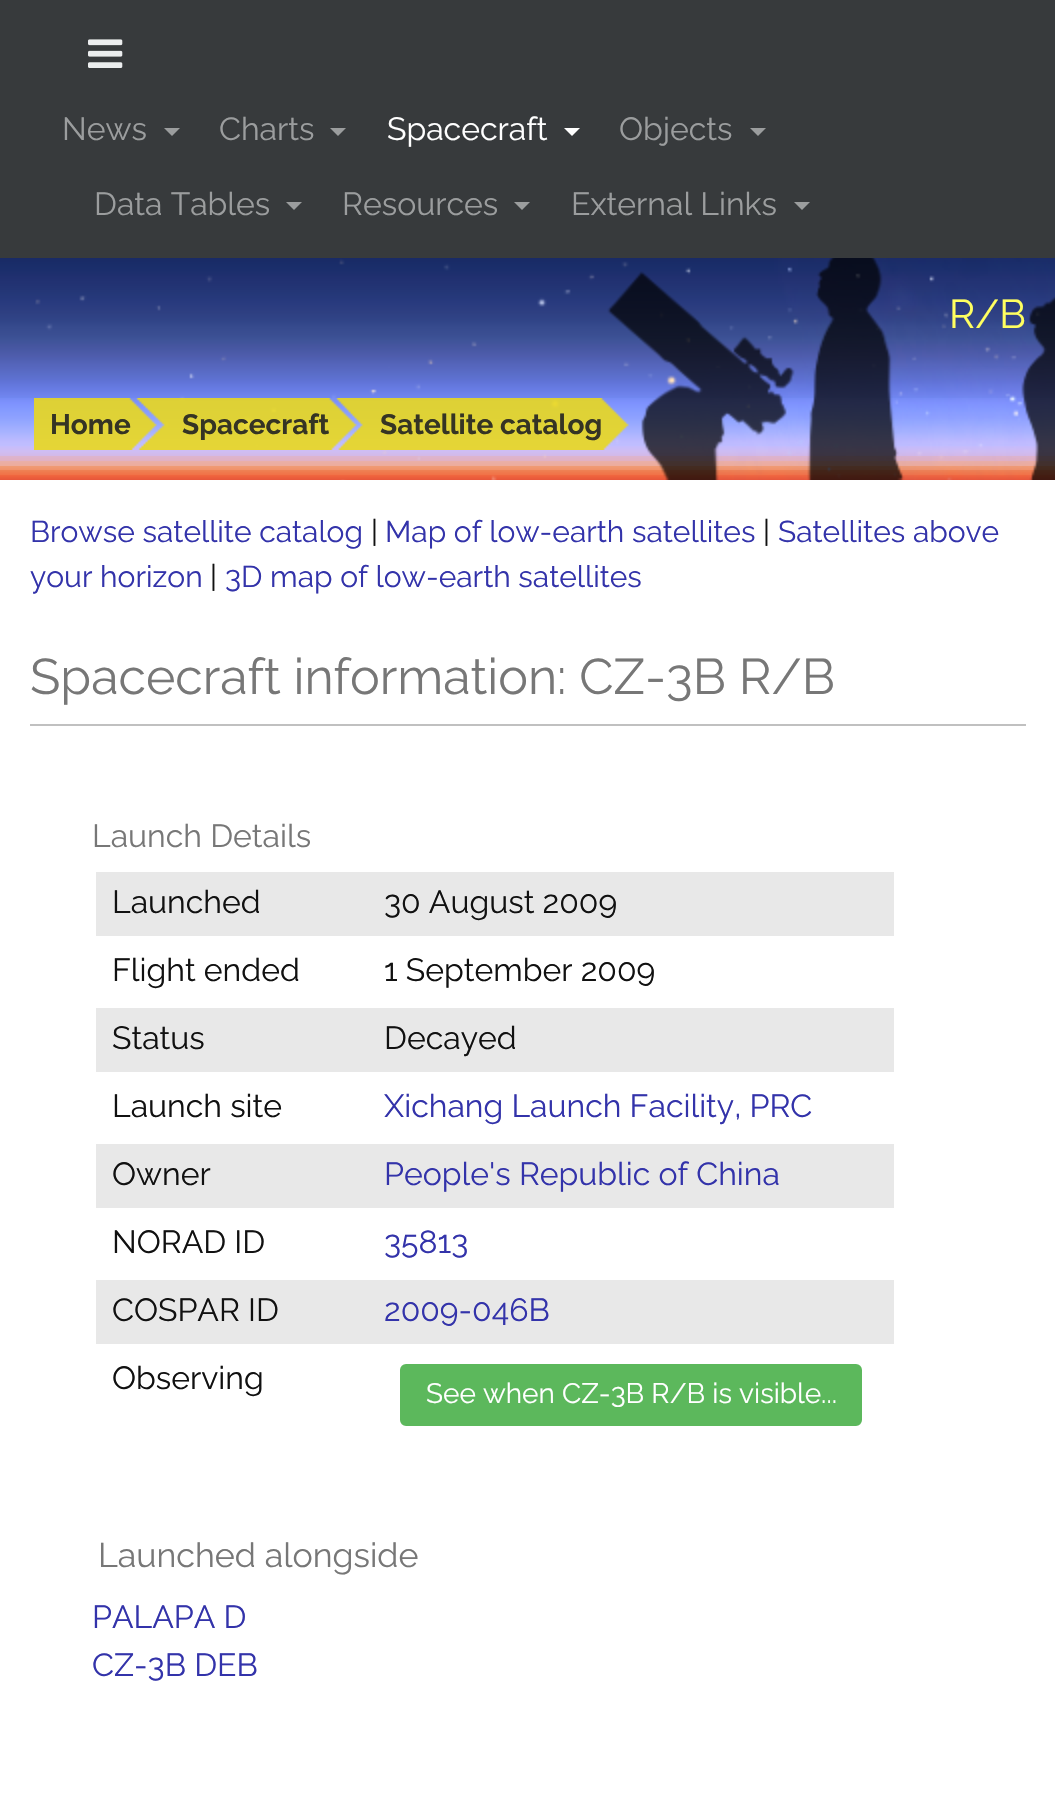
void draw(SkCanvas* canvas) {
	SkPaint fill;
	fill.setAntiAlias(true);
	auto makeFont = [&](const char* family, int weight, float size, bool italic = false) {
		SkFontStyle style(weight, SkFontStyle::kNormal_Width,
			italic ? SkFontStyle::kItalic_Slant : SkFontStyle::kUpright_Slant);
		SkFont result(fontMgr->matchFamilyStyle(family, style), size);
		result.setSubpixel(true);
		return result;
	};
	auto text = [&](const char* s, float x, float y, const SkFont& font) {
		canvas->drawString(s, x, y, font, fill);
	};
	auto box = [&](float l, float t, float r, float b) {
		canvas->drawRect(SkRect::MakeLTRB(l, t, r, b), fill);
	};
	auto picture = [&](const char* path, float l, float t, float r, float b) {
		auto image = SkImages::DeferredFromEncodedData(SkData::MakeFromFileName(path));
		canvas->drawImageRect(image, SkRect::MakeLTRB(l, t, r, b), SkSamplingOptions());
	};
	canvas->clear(0xFFFFFFFF);
	fill.setColor(0xFF373A3C);
	box(0, 0, 1055, 258);
	picture("image0.png", 88, 39, 123, 68);
	fill.setColor(0xFF9B9D9E);
	canvas->drawPath(SkPathBuilder().moveTo(164, 128).lineTo(180, 128).lineTo(172, 136).close().detach(), fill);
	canvas->drawPath(SkPathBuilder().moveTo(330, 128).lineTo(346, 128).lineTo(338, 136).close().detach(), fill);
	fill.setColor(0xFFFFFFFF);
	canvas->drawPath(SkPathBuilder().moveTo(564, 128).lineTo(580, 128).lineTo(572, 136).close().detach(), fill);
	fill.setColor(0xFF9B9D9E);
	canvas->drawPath(SkPathBuilder().moveTo(750, 128).lineTo(766, 128).lineTo(758, 136).close().detach(), fill);
	canvas->drawPath(SkPathBuilder().moveTo(286, 202).lineTo(302, 202).lineTo(294, 210).close().detach(), fill);
	canvas->drawPath(SkPathBuilder().moveTo(514, 202).lineTo(530, 202).lineTo(522, 210).close().detach(), fill);
	canvas->drawPath(SkPathBuilder().moveTo(794, 202).lineTo(810, 202).lineTo(802, 210).close().detach(), fill);
	{
		const SkColor colors[] = {0xFF10173D, 0xFF101946, 0xFF131C4D, 0xFF162154, 0xFF19245C, 0xFF182963, 0xFF1A2E6B, 0xFF213070, 0xFF243777, 0xFF283A7E, 0xFF2E3F81, 0xFF314588, 0xFF364A8D, 0xFF3B4F93, 0xFF3F5499, 0xFF45559F, 0xFF4959A5, 0xFF4E5CAB, 0xFF5061B3, 0xFF5565BB, 0xFF5869C2, 0xFF5A6EC9, 0xFF5E71D1, 0xFF6376DB, 0xFF677BE3, 0xFF6D81EA, 0xFF7188F1, 0xFF768CF6, 0xFF7E92FE, 0xFF8298FF, 0xFF889DFF, 0xFF8EA1FF, 0xFF95A8FF, 0xFF9FADFF, 0xFFA7B3FF, 0xFFB3B7FF, 0xFFBDBBFF, 0xFFC1BFFF, 0xFFC6BDFC, 0xFFCFBDF3, 0xFFD4B9E7, 0xFFD9B7DC, 0xFFDCB4CE, 0xFFE1B1C3, 0xFFE5AFB7, 0xFFE9AFA9, 0xFFEDAC9C, 0xFFEFA78C, 0xFFF09C77, 0xFFF19168, 0xFFF1885D, 0xFFEF8053, 0xFFF17146, 0xFFF1673F, 0xFFE75539};
		const float stops[] = {0, 0.25f, 0.38f, 0.45f, 0.5f, 0.53f, 0.56f, 0.58f, 0.61f, 0.63f, 0.65f, 0.67f, 0.68f, 0.7f, 0.71f, 0.72f, 0.73f, 0.74f, 0.75f, 0.76f, 0.77f, 0.78f, 0.79f, 0.8f, 0.81f, 0.82f, 0.83f, 0.83f, 0.84f, 0.85f, 0.86f, 0.87f, 0.88f, 0.89f, 0.9f, 0.91f, 0.92f, 0.93f, 0.93f, 0.94f, 0.95f, 0.95f, 0.95f, 0.96f, 0.96f, 0.96f, 0.97f, 0.97f, 0.97f, 0.98f, 0.98f, 0.98f, 0.99f, 0.99f, 1};
		const SkPoint ends[] = {{528, 0}, {528, 480}};
		fill.setShader(SkGradientShader::MakeLinear(ends, colors, stops, 55, SkTileMode::kClamp));
		fill.setAlpha(255);
	}
	box(0, 258, 1055, 480);
	picture("image1.png", 35, 258, 1055, 480);
	picture("image2.png", 607, 258, 1055, 480);
	picture("image3.png", 34, 398, 157, 450);
	picture("image4.png", 136, 398, 166, 450);
	picture("image5.png", 166, 398, 357, 450);
	picture("image6.png", 336, 398, 364, 450);
	picture("image7.png", 364, 398, 629, 450);
	fill.setShader(nullptr);
	fill.setColor(0xFFC0C0C0);
	box(30, 724, 1026, 726);
	fill.setColor(0xFFE8E8E8);
	box(96, 872, 894, 936);
	box(96, 1008, 894, 1072);
	box(96, 1144, 894, 1208);
	box(96, 1280, 894, 1344);
	fill.setColor(0xFF5CB85C);
	canvas->drawRoundRect(SkRect::MakeLTRB(401, 1365, 861, 1425), 5, 5, fill);
	fill.setStyle(SkPaint::kStroke_Style);
	fill.setStrokeWidth(2);
	canvas->drawRoundRect(SkRect::MakeLTRB(401, 1365, 861, 1425), 5, 5, fill);
	auto font1 = makeFont("Raleway", 400, 32);
	fill.setStyle(SkPaint::kFill_Style);
	fill.setColor(0xFF9B9D9E);
	text("News", 62, 140, font1);
	text("Charts", 219, 140, font1);
	fill.setColor(0xFFFFFFFF);
	text("Spacecraft", 387, 140, font1);
	fill.setColor(0xFF9B9D9E);
	text("Objects", 619, 140, font1);
	text("Data Tables", 94, 215, font1);
	text("Resources", 342, 215, font1);
	text("External Links", 571, 215, font1);
	auto font2 = makeFont("Raleway", 400, 40);
	fill.setColor(0xFFFFFF60);
	text("R/B", 949, 328, font2);
	auto font3 = makeFont("Raleway", 700, 28);
	fill.setColor(0xFF353424);
	text("Spacecraft", 182, 434, font3);
	text("Home", 50, 434, font3);
	text("Satellite catalog", 380, 434, font3);
	auto font4 = makeFont("Raleway", 400, 30);
	fill.setColor(0xFF3333AA);
	text("Browse satellite catalog", 30, 542, font4);
	fill.setColor(0xFF111111);
	text("|", 371, 542, font4);
	fill.setColor(0xFF3333AA);
	text("Map of low-earth satellites", 385, 542, font4);
	fill.setColor(0xFF111111);
	text("|", 763, 542, font4);
	fill.setColor(0xFF3333AA);
	text("Satellites above", 778, 542, font4);
	text("your horizon", 30, 587, font4);
	fill.setColor(0xFF111111);
	text("|", 210, 587, font4);
	fill.setColor(0xFF3333AA);
	text("3D map of low-earth satellites", 225, 587, font4);
	auto font5 = makeFont("Raleway", 400, 50);
	fill.setColor(0xFF777777);
	text("Spacecraft information: CZ-3B R/B", 30, 694, font5);
	text("Launch Details", 92, 847, font1);
	fill.setColor(0xFF111111);
	text("Launched", 112, 913, font1);
	text("30 August 2009", 384, 913, font1);
	text("Flight ended", 112, 981, font1);
	text("1 September 2009", 384, 981, font1);
	text("Status", 112, 1049, font1);
	text("Decayed", 384, 1049, font1);
	text("Launch site", 112, 1117, font1);
	fill.setColor(0xFF3333AA);
	text("Xichang Launch Facility, PRC", 384, 1117, font1);
	fill.setColor(0xFF111111);
	text("Owner", 112, 1185, font1);
	fill.setColor(0xFF3333AA);
	text("People's Republic of China", 384, 1185, font1);
	fill.setColor(0xFF111111);
	text("NORAD ID", 112, 1253, font1);
	fill.setColor(0xFF3333AA);
	text("35813", 384, 1253, font1);
	fill.setColor(0xFF111111);
	text("COSPAR ID", 112, 1321, font1);
	fill.setColor(0xFF3333AA);
	text("2009-046B", 384, 1321, font1);
	fill.setColor(0xFF111111);
	text("Observing", 112, 1389, font1);
	auto font6 = makeFont("Raleway", 400, 28);
	fill.setColor(0xFFFFFFFF);
	text("See when CZ-3B R/B is visible...", 426, 1403, font6);
	auto font7 = makeFont("Raleway", 400, 34);
	fill.setColor(0xFF777777);
	text("Launched alongside", 98, 1567, font7);
	fill.setColor(0xFF3333AA);
	text("PALAPA D", 92, 1628, font1);
	text("CZ-3B DEB", 92, 1676, font1);
}
